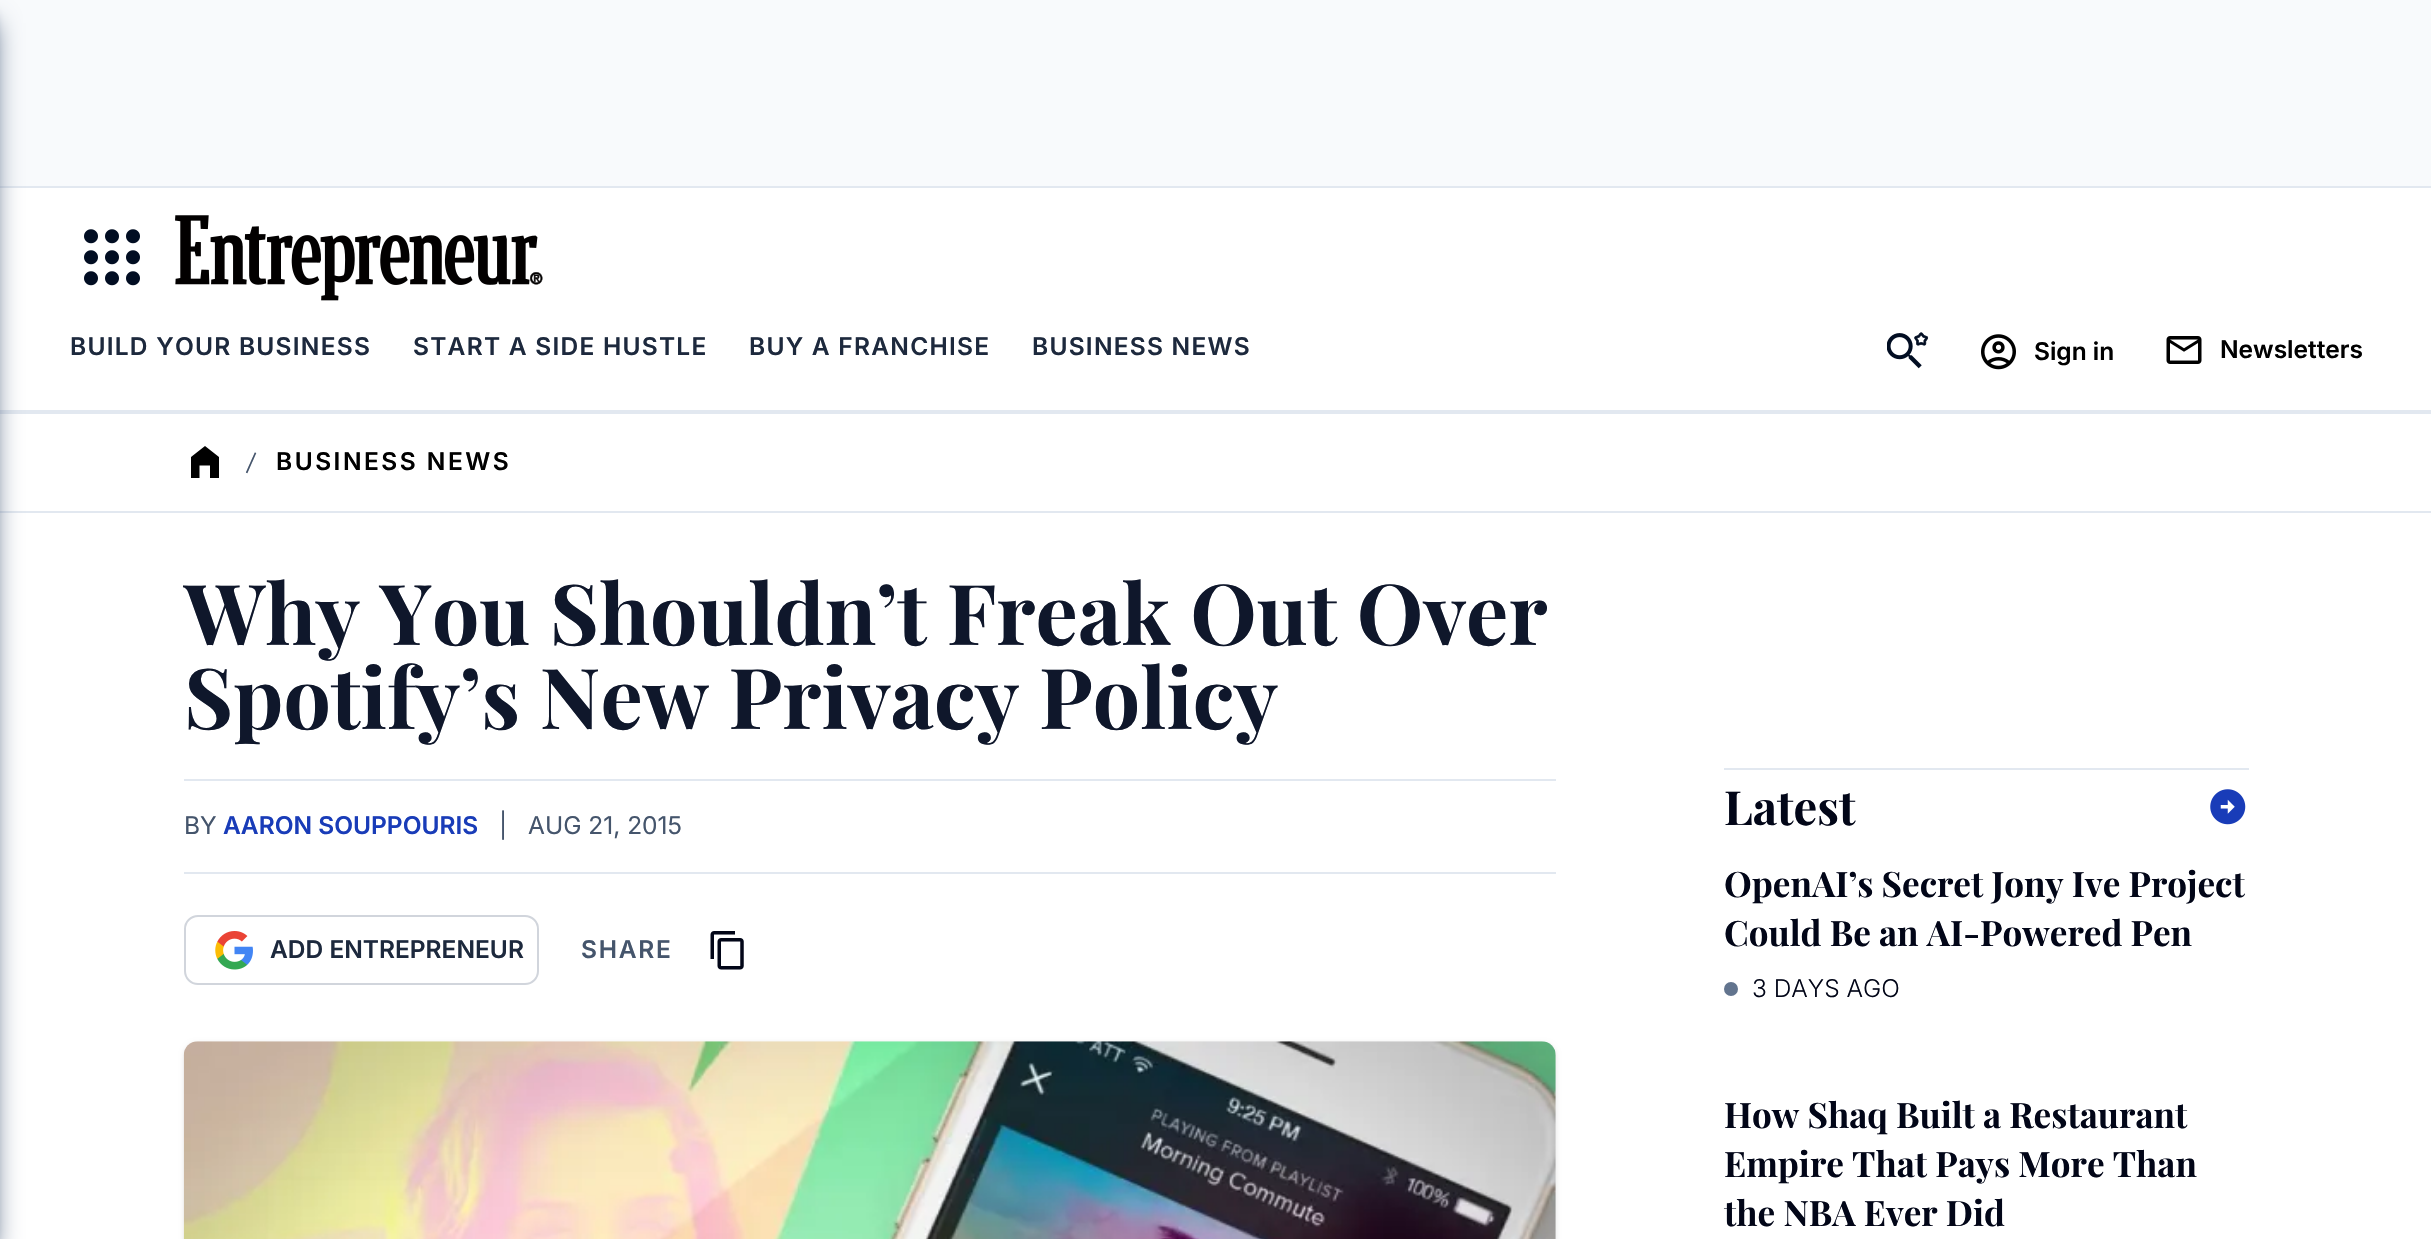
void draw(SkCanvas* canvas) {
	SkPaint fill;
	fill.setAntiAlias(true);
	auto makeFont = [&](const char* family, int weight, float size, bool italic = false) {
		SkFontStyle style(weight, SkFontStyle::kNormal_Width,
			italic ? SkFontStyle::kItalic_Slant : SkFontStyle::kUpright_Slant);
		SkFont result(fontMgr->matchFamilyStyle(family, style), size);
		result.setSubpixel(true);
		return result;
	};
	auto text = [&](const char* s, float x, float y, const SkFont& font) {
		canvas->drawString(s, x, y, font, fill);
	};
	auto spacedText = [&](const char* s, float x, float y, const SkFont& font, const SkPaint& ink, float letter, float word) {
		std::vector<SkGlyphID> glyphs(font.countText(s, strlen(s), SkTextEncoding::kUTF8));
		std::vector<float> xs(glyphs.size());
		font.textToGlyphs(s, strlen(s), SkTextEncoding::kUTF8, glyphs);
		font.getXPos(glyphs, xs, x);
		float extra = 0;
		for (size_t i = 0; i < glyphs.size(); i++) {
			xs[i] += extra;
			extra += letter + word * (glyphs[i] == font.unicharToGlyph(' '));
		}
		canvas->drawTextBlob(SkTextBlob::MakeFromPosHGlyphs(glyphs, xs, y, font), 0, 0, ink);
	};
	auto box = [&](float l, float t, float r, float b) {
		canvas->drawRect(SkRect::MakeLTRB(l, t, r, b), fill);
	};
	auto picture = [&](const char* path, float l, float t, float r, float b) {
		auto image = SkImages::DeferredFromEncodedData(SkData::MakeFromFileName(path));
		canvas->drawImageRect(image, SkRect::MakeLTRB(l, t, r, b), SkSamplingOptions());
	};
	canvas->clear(0xFFFFFFFF);
	fill.setColor(0xFFF8FAFC);
	box(0, 0, 2431, 186);
	fill.setColor(0xFFE2E8F0);
	box(0, 186, 2431, 188);
	box(0, 410, 2431, 414);
	box(0, 511, 2431, 513);
	fill.setColor(0xFF62748E);
	fill.setMaskFilter(SkMaskFilter::MakeBlur(kNormal_SkBlurStyle, 5));
	canvas->drawRect(SkRect::MakeLTRB(-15, 14, -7, 1239), fill);
	fill.setMaskFilter(nullptr);
	fill.setMaskFilter(SkMaskFilter::MakeBlur(kNormal_SkBlurStyle, 13));
	canvas->drawRect(SkRect::MakeLTRB(-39, 23, -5, 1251), fill);
	fill.setMaskFilter(nullptr);
	picture("image0.png", 84, 229, 140, 286);
	picture("image1.png", 175, 215, 543, 301);
	picture("image2.png", 1887, 332, 1929, 369);
	picture("image3.png", 1981, 334, 2016, 370);
	picture("image4.png", 2166, 336, 2202, 364);
	fill.setColor(0xFF000000);
	canvas->drawPath(SkPathBuilder().moveTo(205, 446).lineTo(191, 457).lineTo(191, 478).lineTo(199.5f, 478).lineTo(199.5f, 465.5f).lineTo(210, 465.5f).lineTo(210, 478).lineTo(219, 478).lineTo(219, 457).close().detach(), fill);
	fill.setColor(0xFFE2E8F0);
	box(184, 779, 1556, 781);
	box(184, 872, 1556, 874);
	fill.setStyle(SkPaint::kStroke_Style);
	fill.setStrokeWidth(2);
	fill.setColor(0xFFD1D5DC);
	canvas->drawRoundRect(SkRect::MakeLTRB(185, 916, 538, 984), 13, 13, fill);
	picture("image5.png", 215, 931, 253, 970);
	picture("image6.png", 710, 931, 744, 970);
	fill.setStyle(SkPaint::kFill_Style);
	fill.setColor(0x1A000000);
	fill.setMaskFilter(SkMaskFilter::MakeBlur(kNormal_SkBlurStyle, 2.5f));
	canvas->drawRoundRect(SkRect::MakeLTRB(184, 1043, 1556, 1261), 14, 14, fill);
	fill.setMaskFilter(nullptr);
	picture("image7.png", 183, 1041, 1556, 1239);
	fill.setColor(0xFFE2E8F0);
	box(1724, 768, 2249, 770);
	picture("image8.png", 2210, 789, 2246, 825);
	fill.setColor(0xFF62748E);
	canvas->drawCircle(1731, 989, 7, fill);
	auto font1 = makeFont("Inter", 600, 24.5f);
	fill.setColor(0xFF1D293D);
	spacedText("BUILD YOUR BUSINESS", 70, 355, font1, fill, 1.25f, 0);
	spacedText("START A SIDE HUSTLE", 413, 355, font1, fill, 1.25f, 0);
	spacedText("BUY A FRANCHISE", 749, 355, font1, fill, 1.25f, 0);
	spacedText("BUSINESS NEWS", 1032, 355, font1, fill, 1.25f, 0);
	fill.setColor(0xFF000000);
	text("Sign in", 2034, 360, font1);
	text("Newsletters", 2220, 358, font1);
	auto font2 = makeFont("PT Serif", 700, 24.5f);
	fill.setColor(0xFF45556C);
	text("/", 247, 470, font2);
	fill.setColor(0xFF000000);
	spacedText("BUSINESS NEWS", 276, 470, font1, fill, 2.5f, 0);
	auto font3 = makeFont("Playfair Display", 700, 84);
	fill.setColor(0xFF0F172B);
	text("Why You Shouldn’t Freak Out Over", 184, 645, font3);
	text("Spotify’s New Privacy Policy", 184, 729, font3);
	auto font4 = makeFont("Inter", 400, 24.5f);
	fill.setColor(0xFF45556C);
	text("BY", 184, 834, font4);
	fill.setColor(0xFF193CB8);
	text("AARON SOUPPOURIS", 223, 834, font1);
	fill.setColor(0xFF45556C);
	text("|", 499, 834, font4);
	text("AUG 21, 2015", 528, 834, font4);
	fill.setColor(0xFF1D293D);
	text("ADD ENTREPRENEUR", 270, 958, font1);
	fill.setColor(0xFF45556C);
	spacedText("SHARE", 581, 958, font1, fill, 1.75f, 0);
	auto font5 = makeFont("Playfair Display", 700, 47);
	fill.setColor(0xFF020618);
	text("Latest", 1724, 825, font5);
	auto font6 = makeFont("Playfair Display", 700, 35);
	text("OpenAI’s Secret Jony Ive Project", 1724, 897, font6);
	text("Could Be an AI-Powered Pen", 1724, 946, font6);
	auto font7 = makeFont("Inter", 300, 24.5f);
	text("3 DAYS AGO", 1752, 997, font7);
	text("How Shaq Built a Restaurant", 1724, 1128, font6);
	text("Empire That Pays More Than", 1724, 1177, font6);
	text("the NBA Ever Did", 1724, 1226, font6);
}
